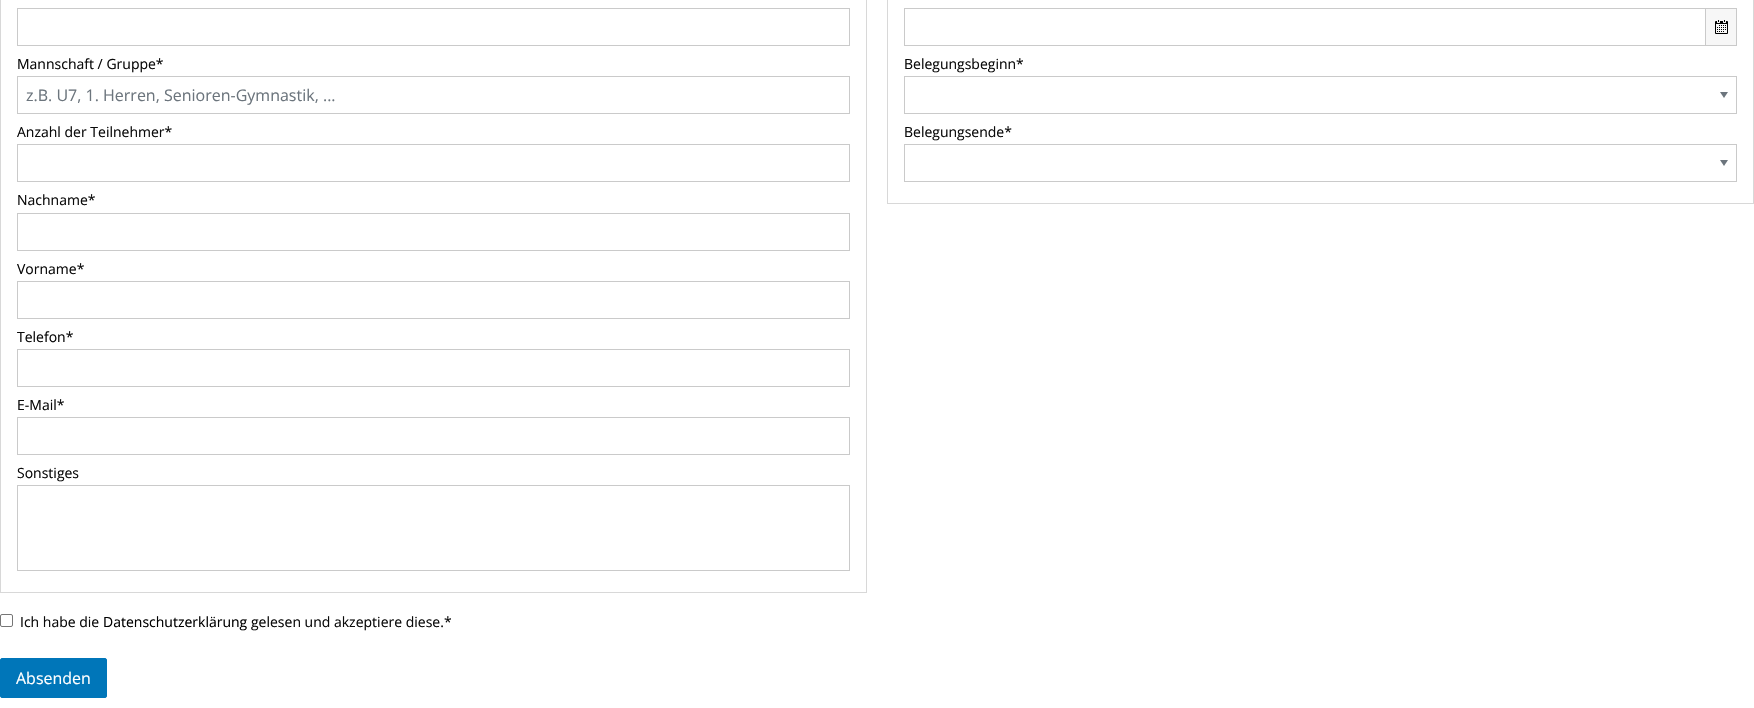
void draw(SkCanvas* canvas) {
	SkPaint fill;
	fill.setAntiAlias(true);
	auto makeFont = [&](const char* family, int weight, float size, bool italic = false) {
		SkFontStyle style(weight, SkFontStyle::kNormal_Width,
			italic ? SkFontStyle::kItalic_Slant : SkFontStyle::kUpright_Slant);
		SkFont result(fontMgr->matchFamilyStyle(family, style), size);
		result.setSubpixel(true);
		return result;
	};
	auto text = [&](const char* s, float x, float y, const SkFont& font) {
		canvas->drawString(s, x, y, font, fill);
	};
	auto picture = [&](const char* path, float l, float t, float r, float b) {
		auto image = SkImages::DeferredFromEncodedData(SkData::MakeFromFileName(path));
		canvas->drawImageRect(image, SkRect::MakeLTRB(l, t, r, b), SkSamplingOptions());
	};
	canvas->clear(0xFFFFFFFF);
	fill.setStyle(SkPaint::kStroke_Style);
	fill.setStrokeWidth(1);
	fill.setColor(0xFFD8D8D8);
	canvas->drawRect(SkRect::MakeLTRB(0.5f, -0.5f, 866.5f, 592.5f), fill);
	fill.setColor(0xFFCACACA);
	canvas->drawRect(SkRect::MakeLTRB(17.5f, 8.5f, 849.5f, 45.5f), fill);
	canvas->drawRect(SkRect::MakeLTRB(17.5f, 76.5f, 849.5f, 113.5f), fill);
	canvas->drawRect(SkRect::MakeLTRB(17.5f, 144.5f, 849.5f, 181.5f), fill);
	canvas->drawRect(SkRect::MakeLTRB(17.5f, 213.5f, 849.5f, 250.5f), fill);
	canvas->drawRect(SkRect::MakeLTRB(17.5f, 281.5f, 849.5f, 318.5f), fill);
	canvas->drawRect(SkRect::MakeLTRB(17.5f, 349.5f, 849.5f, 386.5f), fill);
	canvas->drawRect(SkRect::MakeLTRB(17.5f, 417.5f, 849.5f, 454.5f), fill);
	canvas->drawRect(SkRect::MakeLTRB(17.5f, 485.5f, 849.5f, 570.5f), fill);
	fill.setColor(0xFFD8D8D8);
	canvas->drawRect(SkRect::MakeLTRB(887.5f, -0.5f, 1753.5f, 203.5f), fill);
	fill.setStyle(SkPaint::kFill_Style);
	fill.setColor(0xFFF7F7F7);
	canvas->drawRect(SkRect::MakeLTRB(1705.5f, 8.5f, 1736.5f, 45.5f), fill);
	fill.setStyle(SkPaint::kStroke_Style);
	fill.setColor(0xFFCACACA);
	canvas->drawRect(SkRect::MakeLTRB(1705.5f, 8.5f, 1736.5f, 45.5f), fill);
	canvas->drawRect(SkRect::MakeLTRB(904.5f, 8.5f, 1705.5f, 45.5f), fill);
	picture("image0.png", 1715, 20, 1728, 34);
	fill.setStyle(SkPaint::kFill_Style);
	fill.setColor(0xFF6C757D);
	canvas->drawPath(SkPathBuilder().moveTo(1720, 92).lineTo(1724, 98).lineTo(1728, 92).close().detach(), fill);
	fill.setStyle(SkPaint::kStroke_Style);
	fill.setColor(0xFFCACACA);
	canvas->drawRect(SkRect::MakeLTRB(904.5f, 76.5f, 1736.5f, 113.5f), fill);
	fill.setStyle(SkPaint::kFill_Style);
	fill.setColor(0xFF6C757D);
	canvas->drawPath(SkPathBuilder().moveTo(1720, 160).lineTo(1724, 166).lineTo(1728, 160).close().detach(), fill);
	fill.setStyle(SkPaint::kStroke_Style);
	fill.setColor(0xFFCACACA);
	canvas->drawRect(SkRect::MakeLTRB(904.5f, 144.5f, 1736.5f, 181.5f), fill);
	fill.setColor(0xFF767676);
	canvas->drawRoundRect(SkRect::MakeLTRB(0.5f, 614.5f, 12.5f, 626.5f), 1.5f, 1.5f, fill);
	fill.setStyle(SkPaint::kFill_Style);
	fill.setColor(0xFF0076B9);
	canvas->drawRoundRect(SkRect::MakeLTRB(0.5f, 658.5f, 106.5f, 697.5f), 1.5f, 1.5f, fill);
	fill.setStyle(SkPaint::kStroke_Style);
	canvas->drawRoundRect(SkRect::MakeLTRB(0.5f, 658.5f, 106.5f, 697.5f), 1.5f, 1.5f, fill);
	auto font1 = makeFont("Open Sans", 400, 14);
	fill.setStyle(SkPaint::kFill_Style);
	fill.setColor(0xFF0A0A0A);
	text("Mannschaft / Gruppe*", 17, 69, font1);
	auto font2 = makeFont("Open Sans", 400, 16);
	fill.setColor(0xFF6C757D);
	text("z.B. U7, 1. Herren, Senioren-Gymnastik, ...", 26, 101, font2);
	fill.setColor(0xFF0A0A0A);
	text("Anzahl der Teilnehmer*", 17, 137, font1);
	text("Nachname*", 17, 205, font1);
	text("Vorname*", 17, 274, font1);
	text("Telefon*", 17, 342, font1);
	text("E-Mail*", 17, 410, font1);
	text("Sonstiges", 17, 478, font1);
	text("Belegungsbeginn*", 904, 69, font1);
	text("Belegungsende*", 904, 137, font1);
	text("Ich habe die", 20, 627, font1);
	fill.setColor(0xFF000000);
	text("Datenschutzerklärung", 103, 627, font1);
	fill.setColor(0xFF0A0A0A);
	text("gelesen und akzeptiere diese.*", 251, 627, font1);
	fill.setColor(0xFFFFFFFF);
	text("Absenden", 16, 684, font2);
}
